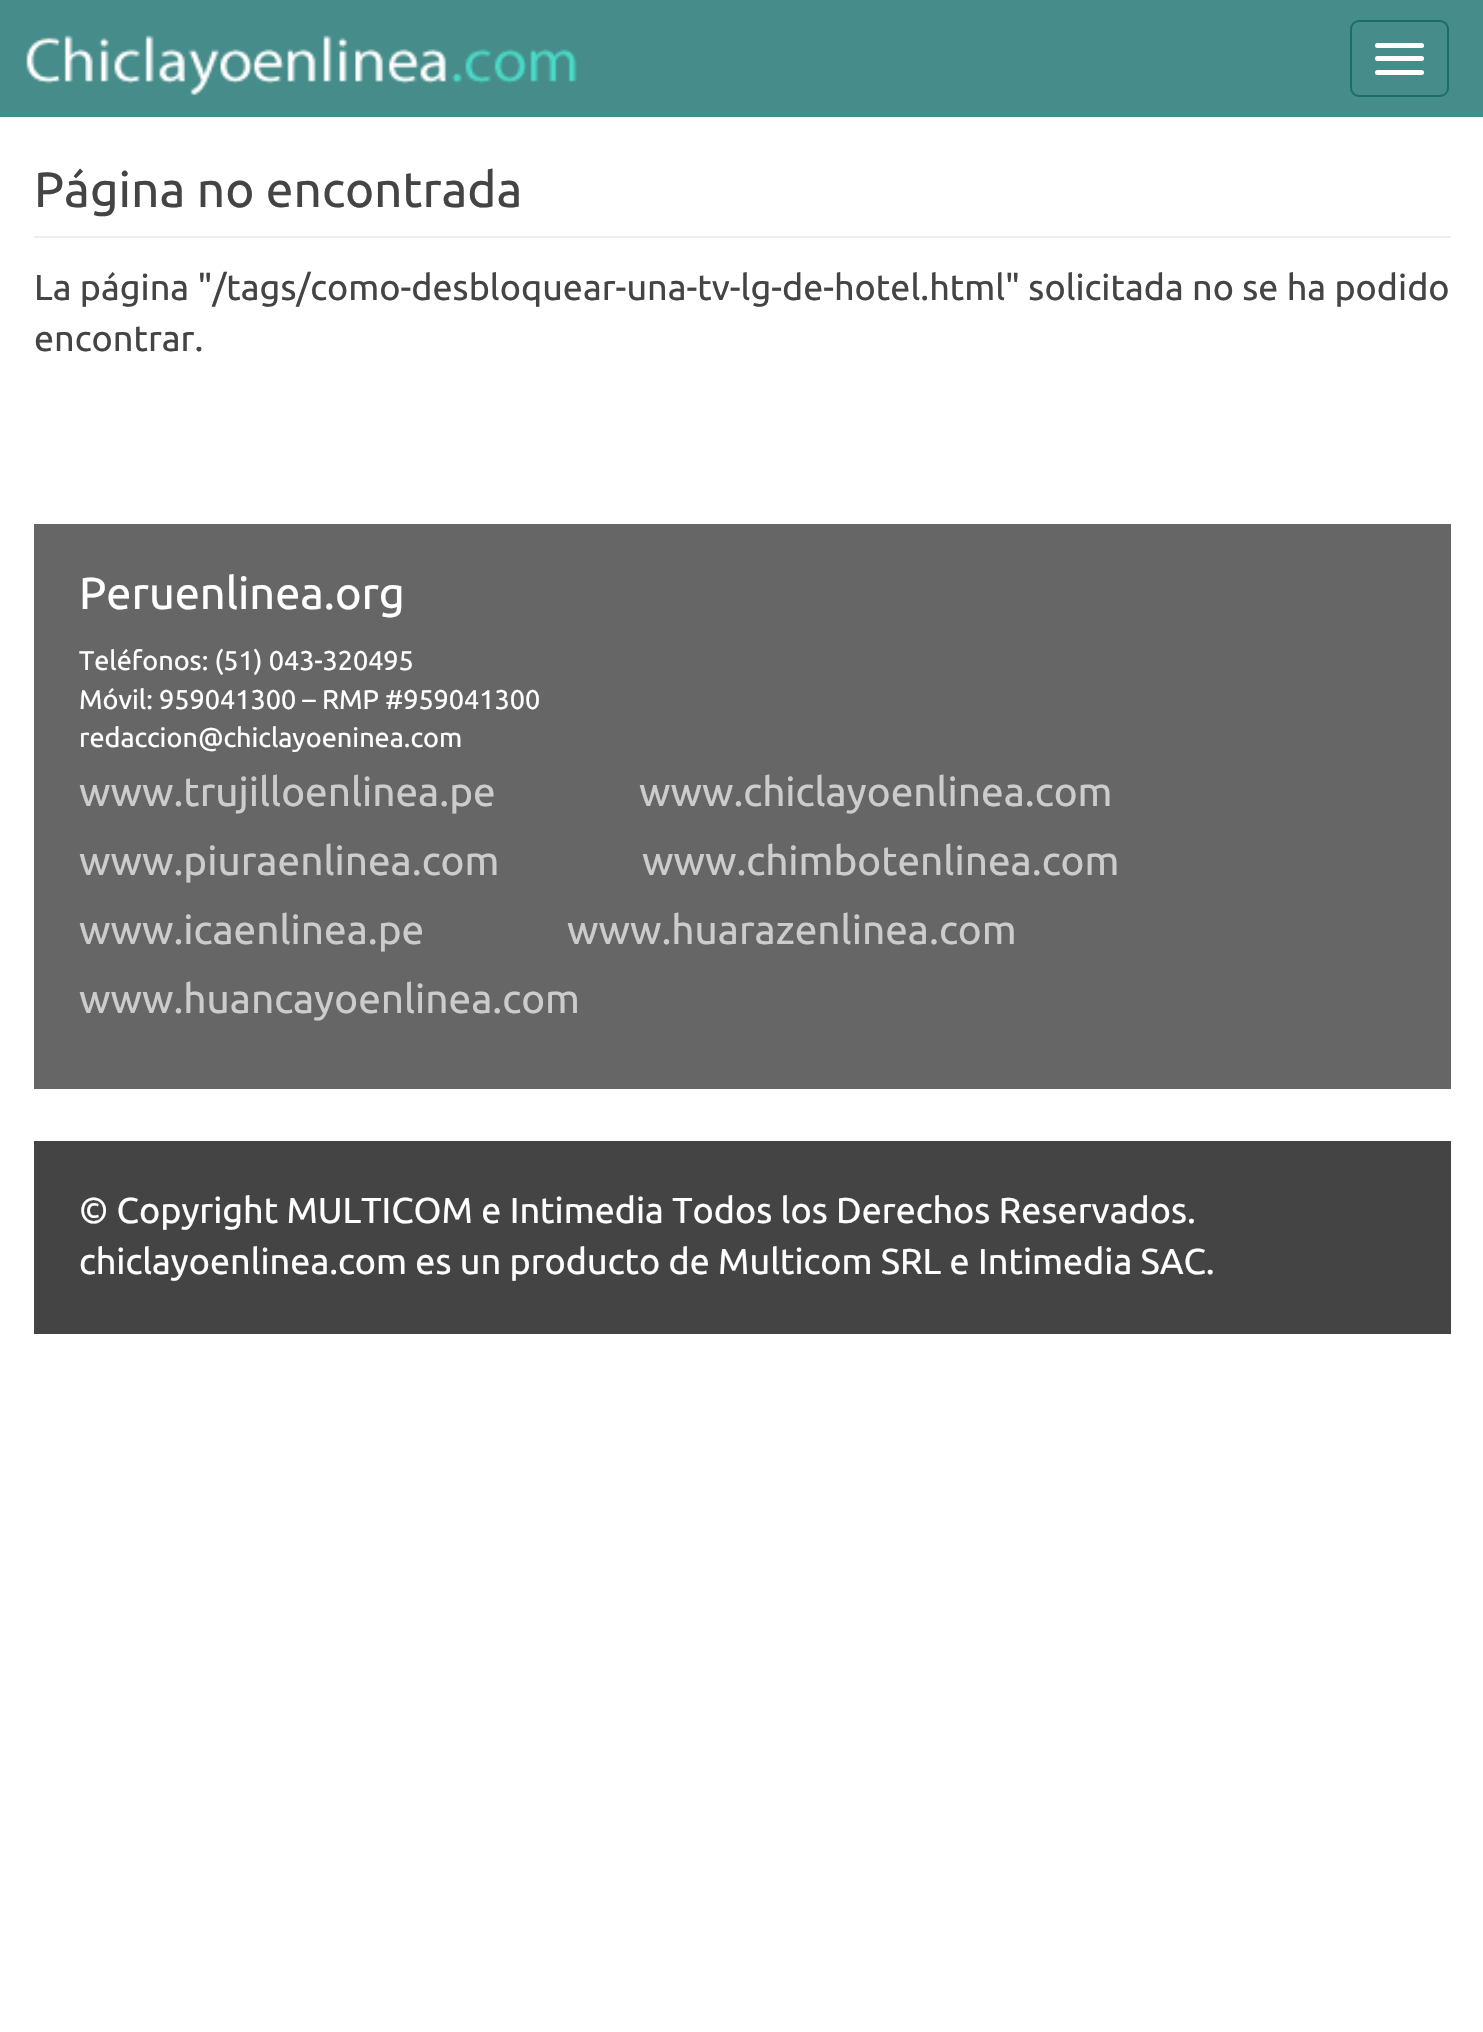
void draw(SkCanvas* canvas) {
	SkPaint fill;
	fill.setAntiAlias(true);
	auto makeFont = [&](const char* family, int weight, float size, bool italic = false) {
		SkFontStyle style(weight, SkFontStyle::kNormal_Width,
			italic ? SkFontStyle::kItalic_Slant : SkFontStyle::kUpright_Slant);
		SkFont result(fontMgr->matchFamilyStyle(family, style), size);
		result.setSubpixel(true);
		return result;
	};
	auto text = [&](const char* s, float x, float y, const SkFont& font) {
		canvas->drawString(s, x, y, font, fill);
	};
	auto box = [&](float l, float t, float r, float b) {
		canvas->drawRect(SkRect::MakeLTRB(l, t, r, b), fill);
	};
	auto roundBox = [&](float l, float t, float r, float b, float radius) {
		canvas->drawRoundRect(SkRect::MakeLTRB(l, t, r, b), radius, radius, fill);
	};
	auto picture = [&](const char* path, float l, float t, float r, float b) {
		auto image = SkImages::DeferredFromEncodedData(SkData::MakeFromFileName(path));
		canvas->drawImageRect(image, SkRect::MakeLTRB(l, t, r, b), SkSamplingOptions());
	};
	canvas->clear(0xFFFFFFFF);
	fill.setColor(0xFF468C8A);
	box(0, 0, 1483, 117);
	picture("image0.png", 26, 35, 577, 96);
	fill.setStyle(SkPaint::kStroke_Style);
	fill.setStrokeWidth(2);
	fill.setColor(0xFF1A6F64);
	canvas->drawRoundRect(SkRect::MakeLTRB(1351, 21, 1448, 96), 8, 8, fill);
	fill.setStyle(SkPaint::kFill_Style);
	fill.setColor(0xFFFFFFFF);
	roundBox(1375, 43, 1424, 48, 2.5f);
	roundBox(1375, 56, 1424, 61, 2.5f);
	roundBox(1375, 70, 1424, 75, 2.5f);
	fill.setColor(0xFFEEEEEE);
	box(34, 236, 1451, 238);
	fill.setColor(0xFF666666);
	box(34, 524, 1451, 1089);
	fill.setColor(0xFF444444);
	box(34, 1141, 1451, 1334);
	auto font1 = makeFont("Ubuntu", 400, 49.5f);
	text("Página no encontrada", 34, 207, font1);
	auto font2 = makeFont("Ubuntu", 400, 36);
	text("La página \"/tags/como-desbloquear-una-tv-lg-de-hotel.html\" solicitada no se ha podido", 34, 300, font2);
	text("encontrar.", 34, 351, font2);
	auto font3 = makeFont("Ubuntu", 400, 45);
	fill.setColor(0xFFFFFFFF);
	text("Peruenlinea.org", 79, 609, font3);
	auto font4 = makeFont("Ubuntu", 400, 27);
	text("Teléfonos: (51) 043-320495", 79, 670, font4);
	text("Móvil: 959041300 – RMP #959041300", 79, 709, font4);
	text("redaccion@chiclayoeninea.com", 79, 747, font4);
	auto font5 = makeFont("Ubuntu", 400, 40.5f);
	fill.setColor(0xFFCCCCCC);
	text("www.trujilloenlinea.pe", 79, 806, font5);
	text("www.chiclayoenlinea.com", 639, 806, font5);
	text("www.piuraenlinea.com", 79, 875, font5);
	text("www.chimbotenlinea.com", 642, 875, font5);
	text("www.icaenlinea.pe", 79, 944, font5);
	text("www.huarazenlinea.com", 567, 944, font5);
	text("www.huancayoenlinea.com", 79, 1013, font5);
	fill.setColor(0xFFFFFFFF);
	text("© Copyright MULTICOM e Intimedia Todos los Derechos Reservados.", 79, 1223, font2);
	text("chiclayoenlinea.com es un producto de Multicom SRL e Intimedia SAC.", 79, 1274, font2);
}
